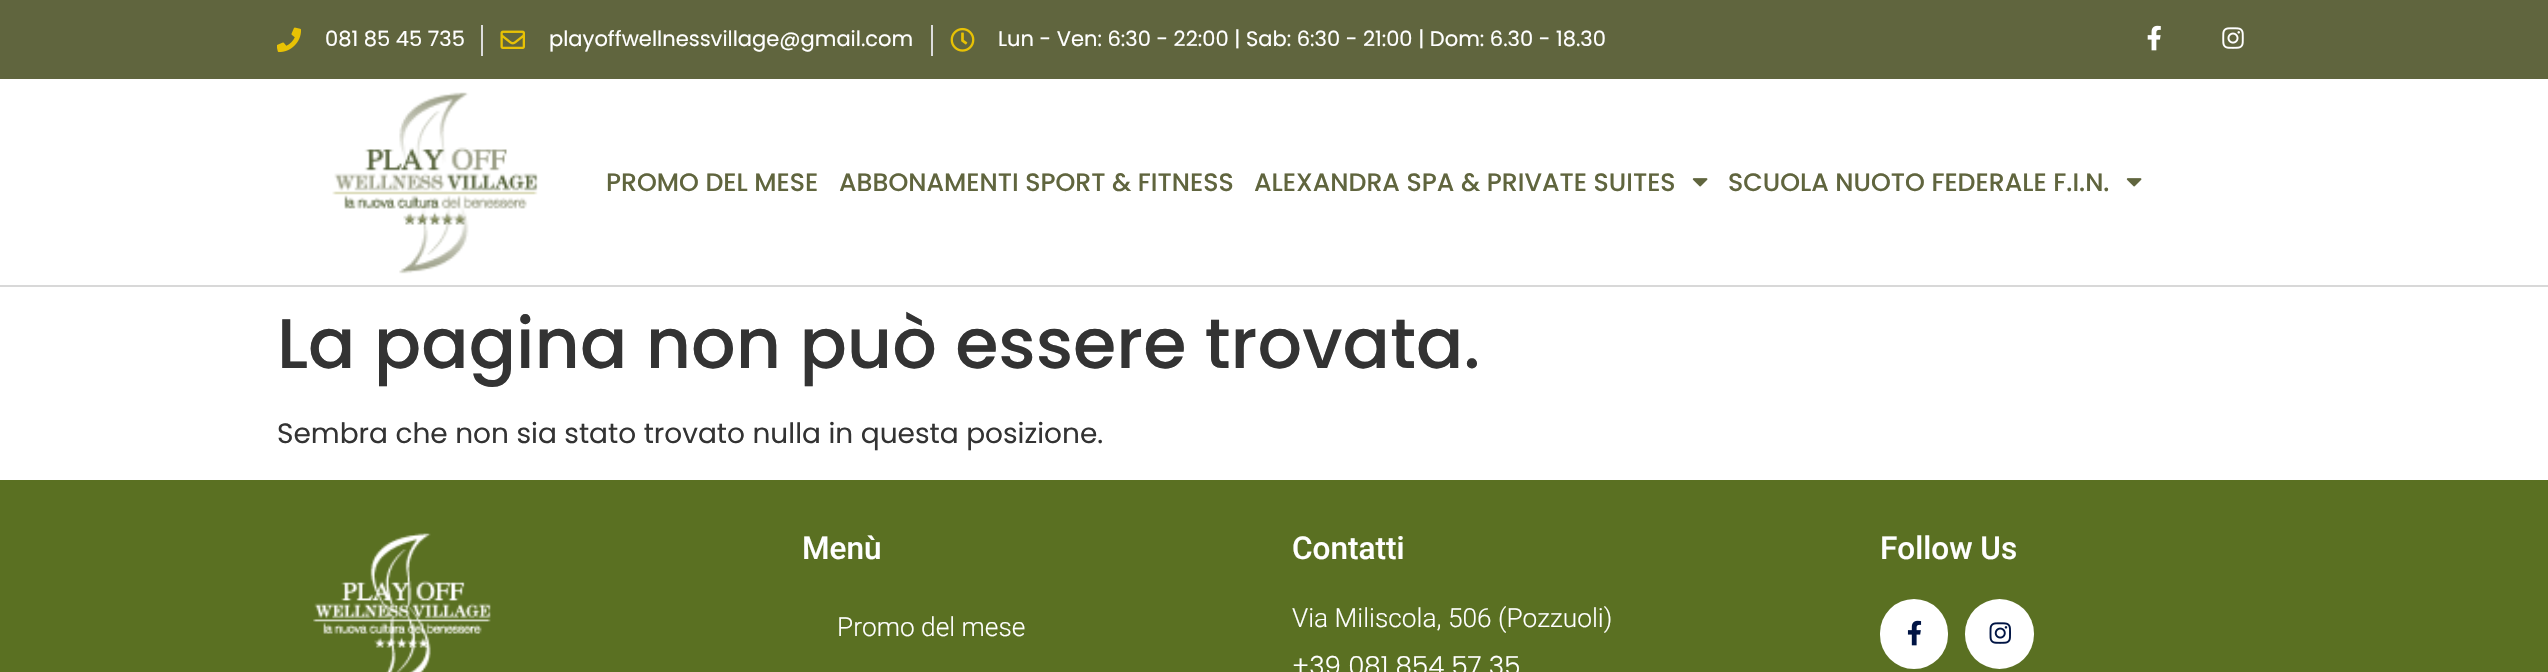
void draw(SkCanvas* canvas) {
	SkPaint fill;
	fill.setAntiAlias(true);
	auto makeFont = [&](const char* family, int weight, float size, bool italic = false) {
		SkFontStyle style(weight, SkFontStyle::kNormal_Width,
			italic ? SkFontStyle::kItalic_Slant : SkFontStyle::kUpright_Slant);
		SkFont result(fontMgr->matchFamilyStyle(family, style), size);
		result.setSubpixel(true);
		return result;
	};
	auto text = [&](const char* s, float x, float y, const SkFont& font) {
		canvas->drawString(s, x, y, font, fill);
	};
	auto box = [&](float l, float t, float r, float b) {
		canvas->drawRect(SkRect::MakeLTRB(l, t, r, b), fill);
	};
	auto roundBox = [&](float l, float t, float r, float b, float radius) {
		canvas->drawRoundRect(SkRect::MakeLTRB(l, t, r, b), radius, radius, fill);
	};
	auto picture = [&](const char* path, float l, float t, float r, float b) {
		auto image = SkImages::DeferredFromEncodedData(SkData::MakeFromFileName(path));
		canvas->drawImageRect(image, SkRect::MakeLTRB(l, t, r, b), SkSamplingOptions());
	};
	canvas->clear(0xFFFFFFFF);
	fill.setColor(0xFF60653E);
	box(0, 0, 2548, 79);
	picture("image0.png", 277, 27, 301, 53);
	fill.setColor(0xFFDDDDDD);
	box(481, 25, 483, 56);
	picture("image1.png", 500, 30, 525, 49);
	box(931, 25, 933, 56);
	picture("image2.png", 950, 27, 975, 52);
	picture("image3.png", 2147, 25, 2161, 51);
	picture("image4.png", 2222, 27, 2244, 49);
	fill.setColor(0xFFD8D8D8);
	box(0, 285, 2548, 287);
	picture("image5.png", 332, 92, 538, 274);
	picture("image6.png", 1692, 178, 1708, 187);
	picture("image6.png", 2126, 178, 2142, 187);
	fill.setColor(0xFF5A7022);
	box(0, 480, 2548, 672);
	picture("image7.png", 313, 533, 491, 672);
	fill.setColor(0xFFFFFFFF);
	roundBox(1880, 599, 1948, 669, 34);
	picture("image8.png", 1907, 620, 1922, 646);
	roundBox(1965, 599, 2034, 669, 34.5f);
	picture("image9.png", 1989, 622, 2011, 644);
	auto font1 = makeFont("Poppins", 400, 21);
	text("081 85 45 735", 325, 46, font1);
	text("playoffwellnessvillage@gmail.com", 549, 46, font1);
	text("Lun - Ven: 6:30 - 22:00 | Sab: 6:30 - 21:00 | Dom: 6.30 - 18.30", 998, 46, font1);
	auto font2 = makeFont("Poppins", 500, 25.25f);
	fill.setColor(0xFF60653E);
	text("PROMO DEL MESE", 606, 191, font2);
	text("ABBONAMENTI SPORT & FITNESS", 839, 191, font2);
	text("ALEXANDRA SPA & PRIVATE SUITES", 1254, 191, font2);
	text("SCUOLA NUOTO FEDERALE F.I.N.", 1728, 191, font2);
	auto font3 = makeFont("Poppins", 500, 70);
	fill.setColor(0xFF333333);
	text("La pagina non può essere trovata.", 277, 368, font3);
	auto font4 = makeFont("Poppins", 400, 28);
	text("Sembra che non sia stato trovato nulla in questa posizione.", 277, 443, font4);
	auto font5 = makeFont("Roboto", 500, 31.5f);
	fill.setColor(0xFFFFFFFF);
	text("Menù", 802, 559, font5);
	auto font6 = makeFont("Roboto", 300, 26.25f);
	text("Promo del mese", 837, 636, font6);
	text("Contatti", 1292, 559, font5);
	text("Via Miliscola, 506 (Pozzuoli)", 1292, 627, font6);
	auto font7 = makeFont("Poppins", 300, 26.25f);
	text("+39 081 854 57 35", 1292, 675, font7);
	text("Follow Us", 1880, 559, font5);
}
